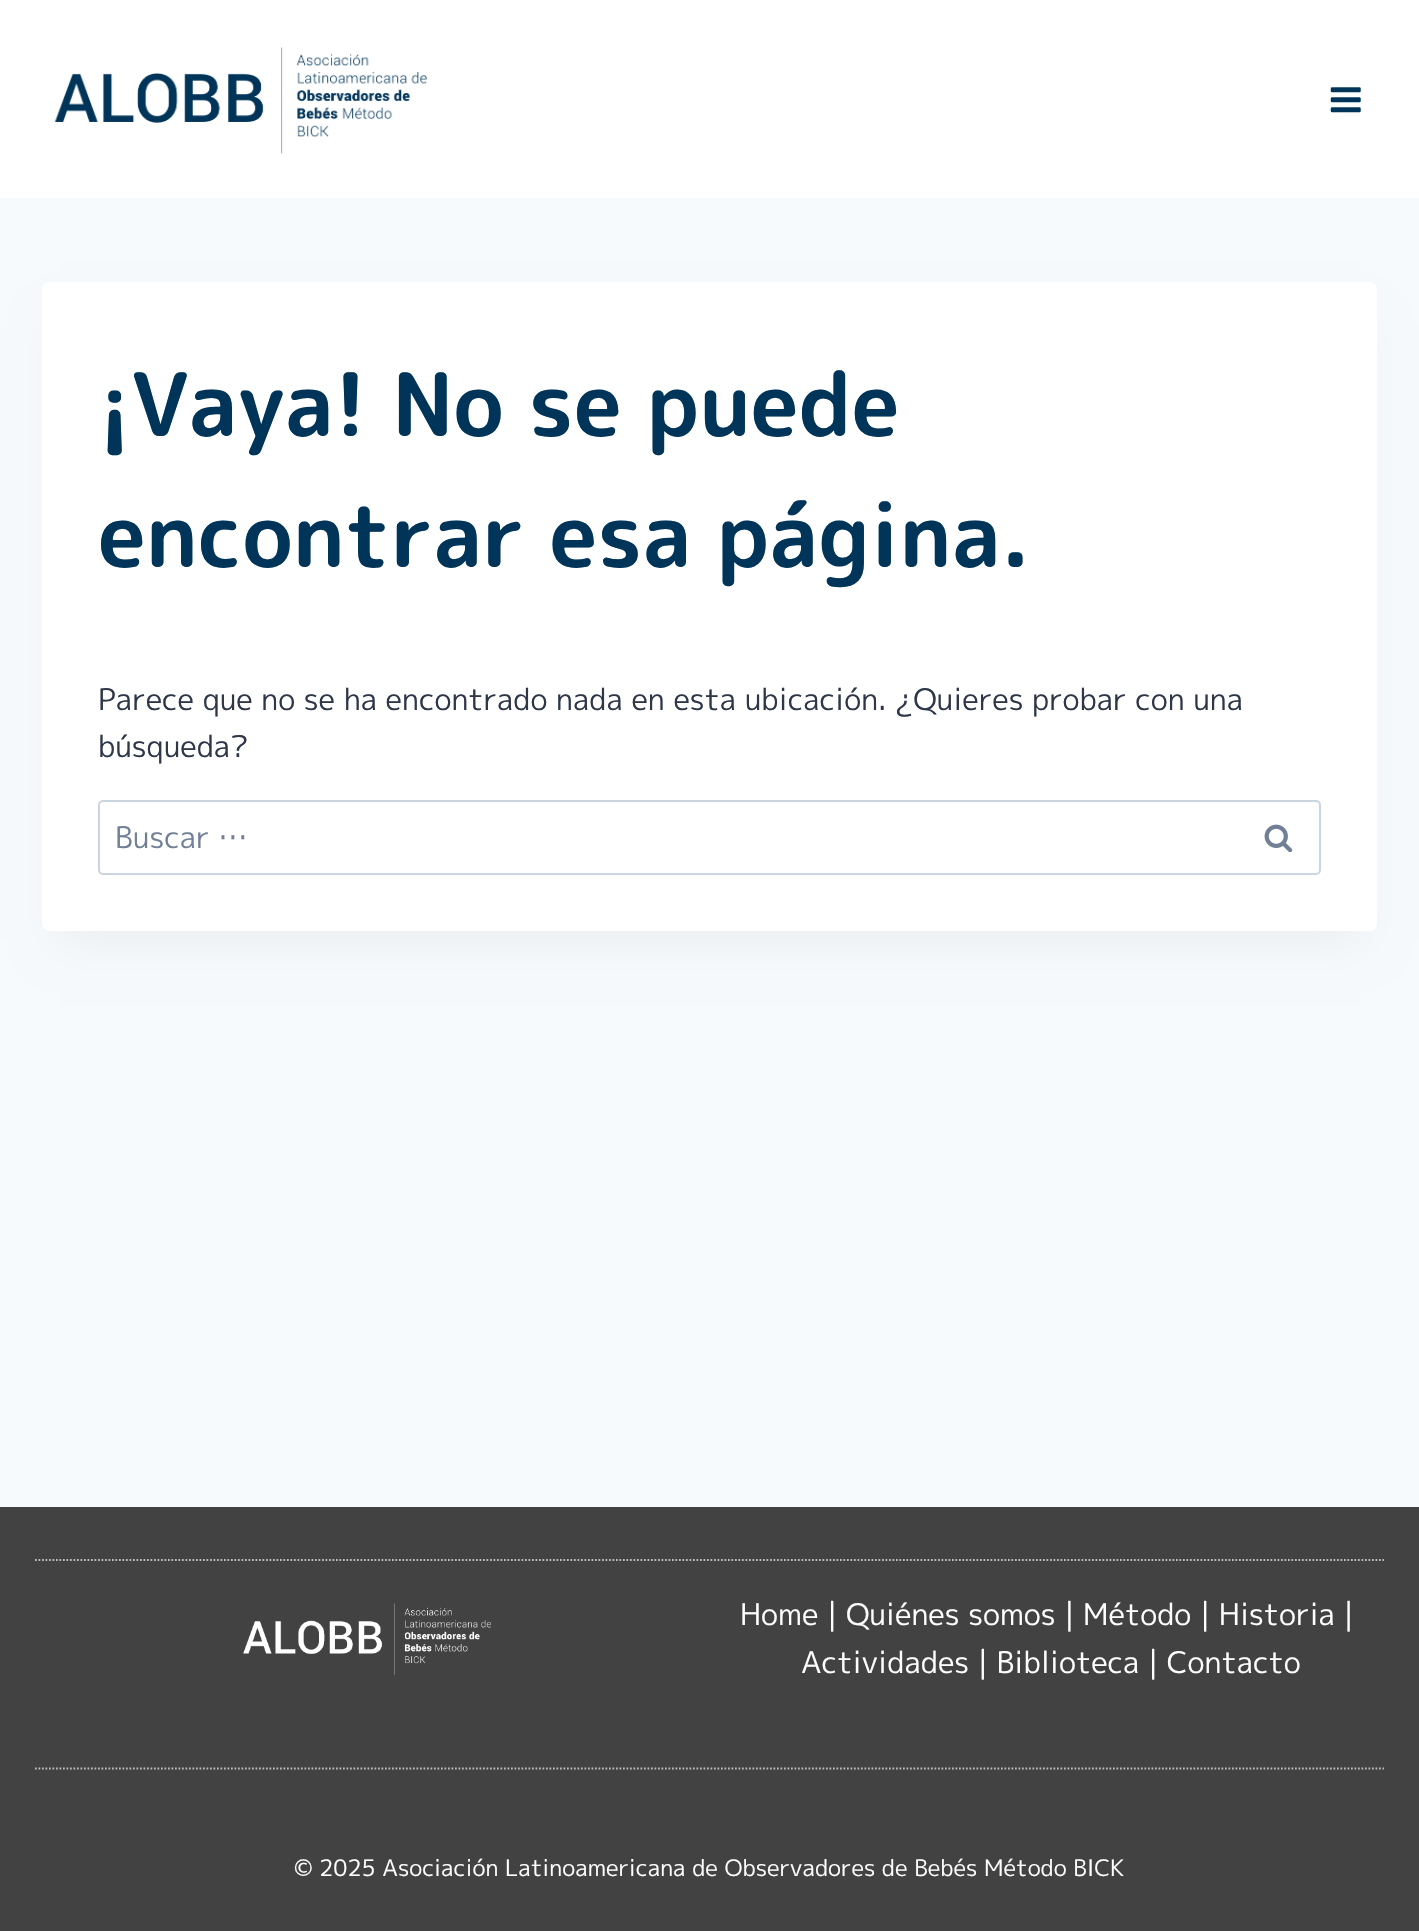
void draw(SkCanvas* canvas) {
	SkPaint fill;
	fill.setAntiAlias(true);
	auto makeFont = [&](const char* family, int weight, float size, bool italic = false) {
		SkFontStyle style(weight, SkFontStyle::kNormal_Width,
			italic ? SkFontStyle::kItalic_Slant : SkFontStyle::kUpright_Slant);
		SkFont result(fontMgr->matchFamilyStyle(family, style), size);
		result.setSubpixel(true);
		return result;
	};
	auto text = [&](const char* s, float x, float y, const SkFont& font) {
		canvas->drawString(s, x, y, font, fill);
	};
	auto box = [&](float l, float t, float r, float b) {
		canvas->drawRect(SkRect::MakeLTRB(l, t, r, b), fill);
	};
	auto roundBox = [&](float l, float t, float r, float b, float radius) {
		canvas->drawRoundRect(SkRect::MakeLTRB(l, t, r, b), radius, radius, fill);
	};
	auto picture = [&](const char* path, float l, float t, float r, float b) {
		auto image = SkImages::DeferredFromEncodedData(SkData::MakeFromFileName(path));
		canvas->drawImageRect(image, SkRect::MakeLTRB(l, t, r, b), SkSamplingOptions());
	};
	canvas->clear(0xFFF7FAFC);
	fill.setColor(0xFFFFFFFF);
	box(0, 0, 1419, 198);
	picture("image0.png", 54, 47, 428, 154);
	picture("image1.png", 1330, 87, 1361, 113);
	fill.setColor(0x0D000000);
	fill.setMaskFilter(SkMaskFilter::MakeBlur(kNormal_SkBlurStyle, 22));
	canvas->drawRect(SkRect::MakeLTRB(60, 326, 1360, 940), fill);
	fill.setMaskFilter(nullptr);
	fill.setColor(0xFFFFFFFF);
	roundBox(42, 282, 1377, 931, 7);
	fill.setStyle(SkPaint::kStroke_Style);
	fill.setStrokeWidth(2);
	fill.setColor(0xFFCBD5E0);
	canvas->drawRoundRect(SkRect::MakeLTRB(99, 801, 1320, 874), 4, 4, fill);
	picture("image2.png", 1264, 824, 1293, 852);
	fill.setStyle(SkPaint::kFill_Style);
	fill.setColor(0xFF424242);
	box(0, 1507, 1419, 1931);
	fill.setStyle(SkPaint::kStroke_Style);
	fill.setStrokeWidth(1.8f);
	fill.setColor(0xFFBDBDBD);
	fill.setPathEffect(SkDashPathEffect::Make({{1.75f, 1.75f}}, 0));
	canvas->drawPath(SkPathBuilder().moveTo(35, 1560).lineTo(1384, 1560).detach(), fill);
	fill.setPathEffect(nullptr);
	fill.setPathEffect(SkDashPathEffect::Make({{1.75f, 1.75f}}, 0));
	canvas->drawPath(SkPathBuilder().moveTo(35, 1768.5f).lineTo(1384, 1768.5f).detach(), fill);
	fill.setPathEffect(nullptr);
	picture("image3.png", 243, 1603, 491, 1675);
	auto font1 = makeFont("Rounded Mplus 1c Bold", 700, 87.5f);
	fill.setStyle(SkPaint::kFill_Style);
	fill.setColor(0xFF003459);
	text("¡Vaya! No se puede", 98, 436, font1);
	text("encontrar esa página.", 98, 567, font1);
	auto font2 = makeFont("M PLUS 1p", 400, 29.75f);
	fill.setColor(0xFF2D3748);
	text("Parece que no se ha encontrado nada en esta ubicación. ¿Quieres probar con una", 98, 710, font2);
	text("búsqueda?", 98, 757, font2);
	fill.setColor(0xFF718096);
	text("Buscar …", 115, 848, font2);
	fill.setColor(0xFFFFFFFF);
	text("Home | Quiénes somos | Método | Historia |", 740, 1625, font2);
	text("Actividades | Biblioteca | Contacto", 801, 1673, font2);
	auto font3 = makeFont("M PLUS 1p", 400, 22.75f);
	text("© 2025 Asociación Latinoamericana de Observadores de Bebés Método BICK", 294, 1876, font3);
}
